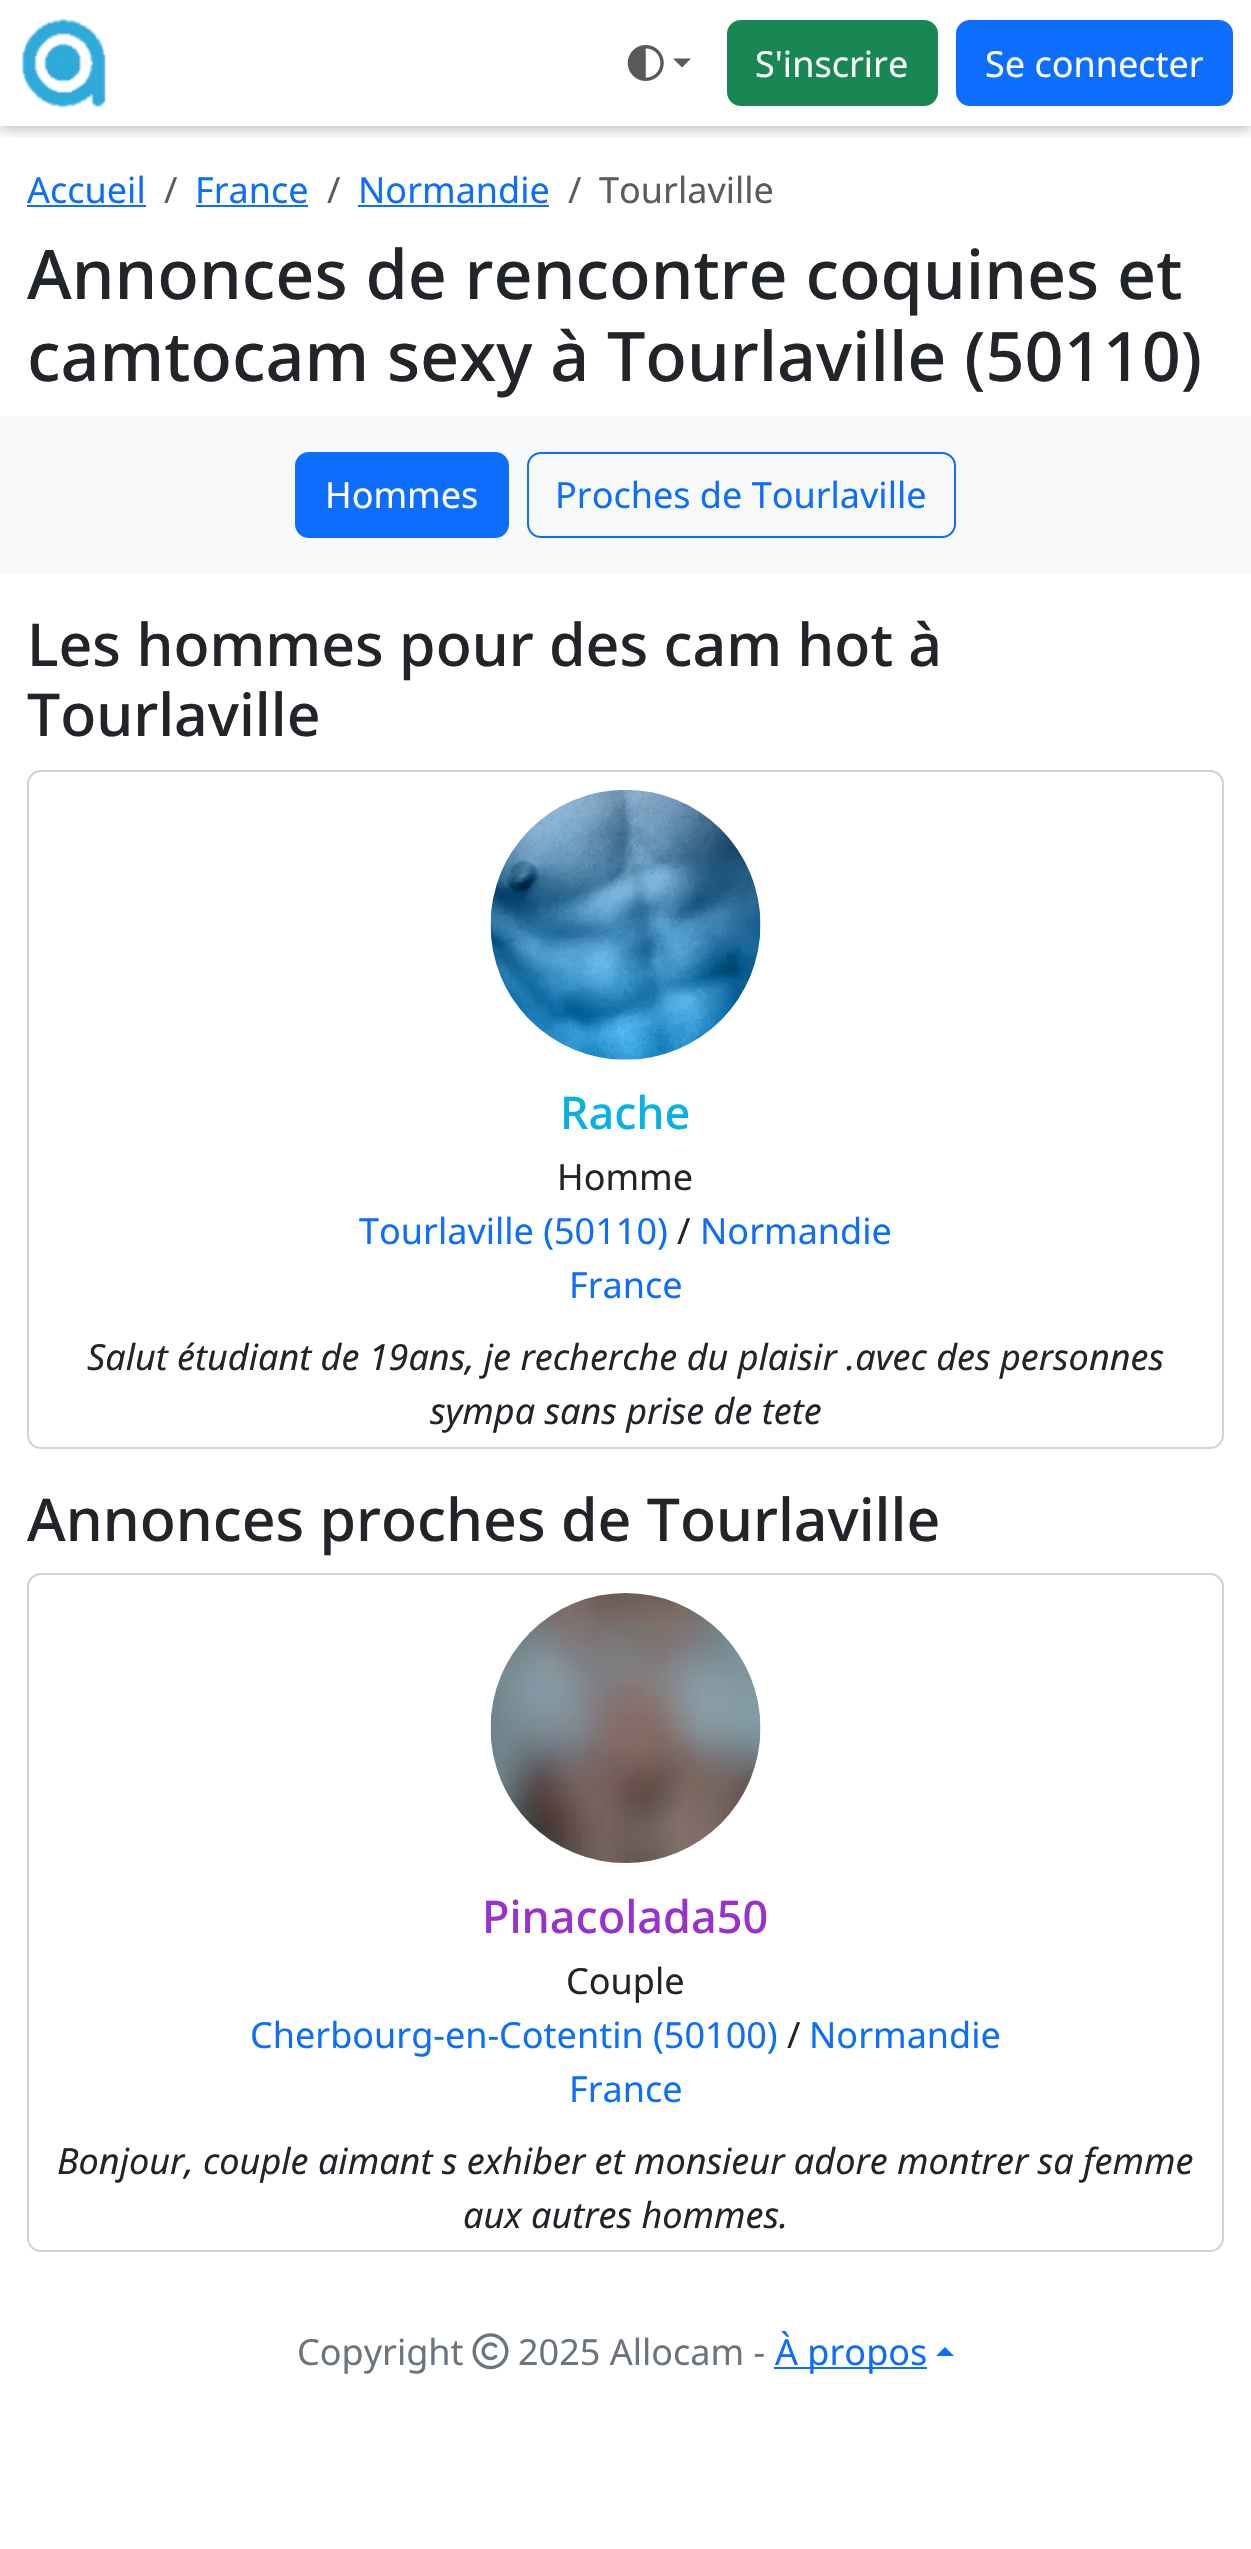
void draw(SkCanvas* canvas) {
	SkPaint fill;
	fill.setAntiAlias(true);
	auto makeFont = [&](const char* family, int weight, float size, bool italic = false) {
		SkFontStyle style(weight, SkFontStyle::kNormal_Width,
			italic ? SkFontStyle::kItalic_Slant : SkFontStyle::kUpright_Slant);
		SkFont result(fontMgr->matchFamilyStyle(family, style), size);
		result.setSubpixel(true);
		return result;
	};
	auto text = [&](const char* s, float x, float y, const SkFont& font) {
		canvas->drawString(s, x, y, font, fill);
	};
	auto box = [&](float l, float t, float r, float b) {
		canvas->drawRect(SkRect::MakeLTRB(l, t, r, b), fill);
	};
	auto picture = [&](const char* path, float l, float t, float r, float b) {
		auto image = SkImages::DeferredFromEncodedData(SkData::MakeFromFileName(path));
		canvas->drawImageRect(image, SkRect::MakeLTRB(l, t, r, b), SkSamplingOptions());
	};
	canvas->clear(0xFFFFFFFF);
	canvas->save();
	canvas->clipRect(SkRect::MakeLTRB(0, 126, 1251, 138));
	fill.setColor(0x4D000000);
	fill.setMaskFilter(SkMaskFilter::MakeBlur(kNormal_SkBlurStyle, 7));
	canvas->drawRect(SkRect::MakeLTRB(0, 2, 1251, 128), fill);
	fill.setMaskFilter(nullptr);
	canvas->restore();
	picture("image0.png", 22, 18, 106, 108);
	picture("image1.png", 627, 45, 664, 81);
	fill.setColor(0xFF595959);
	canvas->drawPath(SkPathBuilder().moveTo(673, 58.5f).lineTo(691, 58.5f).lineTo(682, 67.5f).close().detach(), fill);
	fill.setColor(0xFF198754);
	canvas->drawRoundRect(SkRect::MakeLTRB(728, 21, 937, 105), 13, 13, fill);
	fill.setStyle(SkPaint::kStroke_Style);
	fill.setStrokeWidth(2);
	canvas->drawRoundRect(SkRect::MakeLTRB(728, 21, 937, 105), 13, 13, fill);
	fill.setStyle(SkPaint::kFill_Style);
	fill.setColor(0xFF0D6EFD);
	canvas->drawRoundRect(SkRect::MakeLTRB(957, 21, 1232, 105), 13, 13, fill);
	fill.setStyle(SkPaint::kStroke_Style);
	canvas->drawRoundRect(SkRect::MakeLTRB(957, 21, 1232, 105), 13, 13, fill);
	fill.setStyle(SkPaint::kFill_Style);
	box(27, 205, 146, 207);
	box(196, 205, 308, 207);
	box(358, 205, 549, 207);
	fill.setColor(0xFFF8F9FA);
	box(0, 416, 1251, 574);
	fill.setColor(0xFF0D6EFD);
	canvas->drawRoundRect(SkRect::MakeLTRB(296, 453, 508, 537), 13, 13, fill);
	fill.setStyle(SkPaint::kStroke_Style);
	canvas->drawRoundRect(SkRect::MakeLTRB(296, 453, 508, 537), 13, 13, fill);
	canvas->drawRoundRect(SkRect::MakeLTRB(528, 453, 955, 537), 13, 13, fill);
	fill.setColor(0xFFD2D2D2);
	canvas->drawRoundRect(SkRect::MakeLTRB(28, 771, 1223, 1448), 13, 13, fill);
	picture("image2.png", 490, 789, 761, 1060);
	canvas->drawRoundRect(SkRect::MakeLTRB(28, 1574, 1223, 2251), 13, 13, fill);
	picture("image3.png", 490, 1593, 761, 1863);
	picture("image4.png", 472, 2333, 509, 2370);
	fill.setStyle(SkPaint::kFill_Style);
	fill.setColor(0xFF0D6EFD);
	box(774, 2367, 927, 2369);
	canvas->drawPath(SkPathBuilder().moveTo(954, 2356).lineTo(936, 2356).lineTo(945, 2347).close().detach(), fill);
	auto font1 = makeFont("Noto Sans", 400, 36);
	fill.setColor(0xFFFFFFFF);
	text("S'inscrire", 755, 77, font1);
	text("Se connecter", 985, 77, font1);
	fill.setColor(0xFF0D6EFD);
	text("Accueil", 27, 203, font1);
	fill.setColor(0xFF595C5F);
	text("/", 164, 203, font1);
	fill.setColor(0xFF0D6EFD);
	text("France", 195, 203, font1);
	fill.setColor(0xFF595C5F);
	text("/", 327, 203, font1);
	fill.setColor(0xFF0D6EFD);
	text("Normandie", 358, 203, font1);
	fill.setColor(0xFF595C5F);
	text("/", 568, 203, font1);
	text("Tourlaville", 599, 203, font1);
	auto font2 = makeFont("Noto Sans", 500, 68.25f);
	fill.setColor(0xFF212529);
	text("Annonces de rencontre coquines et", 27, 299, font2);
	text("camtocam sexy à Tourlaville (50110)", 27, 381, font2);
	fill.setColor(0xFFFFFFFF);
	text("Hommes", 325, 508, font1);
	fill.setColor(0xFF0D6EFD);
	text("Proches de Tourlaville", 555, 508, font1);
	auto font3 = makeFont("Noto Sans", 500, 59);
	fill.setColor(0xFF212529);
	text("Les hommes pour des cam hot à", 27, 666, font3);
	text("Tourlaville", 27, 736, font3);
	auto font4 = makeFont("Noto Sans", 500, 45);
	fill.setColor(0xFF06B1E5);
	text("Rache", 560, 1129, font4);
	fill.setColor(0xFF212529);
	text("Homme", 557, 1190, font1);
	fill.setColor(0xFF0D6EFD);
	text("Tourlaville (50110)", 359, 1244, font1);
	fill.setColor(0xFF212529);
	text("/", 677, 1244, font1);
	fill.setColor(0xFF0D6EFD);
	text("Normandie", 700, 1244, font1);
	text("France", 569, 1298, font1);
	auto font5 = makeFont("Noto Sans", 400, 36, true);
	fill.setColor(0xFF212529);
	text("Salut étudiant de 19ans, je recherche du plaisir .avec des personnes", 87, 1370, font5);
	text("sympa sans prise de tete", 430, 1424, font5);
	text("Annonces proches de Tourlaville", 27, 1541, font3);
	fill.setColor(0xFF9932CC);
	text("Pinacolada50", 482, 1933, font4);
	fill.setColor(0xFF212529);
	text("Couple", 566, 1994, font1);
	fill.setColor(0xFF0D6EFD);
	text("Cherbourg-en-Cotentin (50100)", 250, 2048, font1);
	fill.setColor(0xFF212529);
	text("/", 787, 2048, font1);
	fill.setColor(0xFF0D6EFD);
	text("Normandie", 809, 2048, font1);
	text("France", 569, 2102, font1);
	fill.setColor(0xFF212529);
	text("Bonjour, couple aimant s exhiber et monsieur adore montrer sa femme", 57, 2174, font5);
	text("aux autres hommes.", 463, 2228, font5);
	fill.setColor(0xFF6C757D);
	text("Copyright", 297, 2365, font1);
	text("2025 Allocam -", 518, 2365, font1);
	fill.setColor(0xFF0D6EFD);
	text("À propos", 775, 2365, font1);
}
